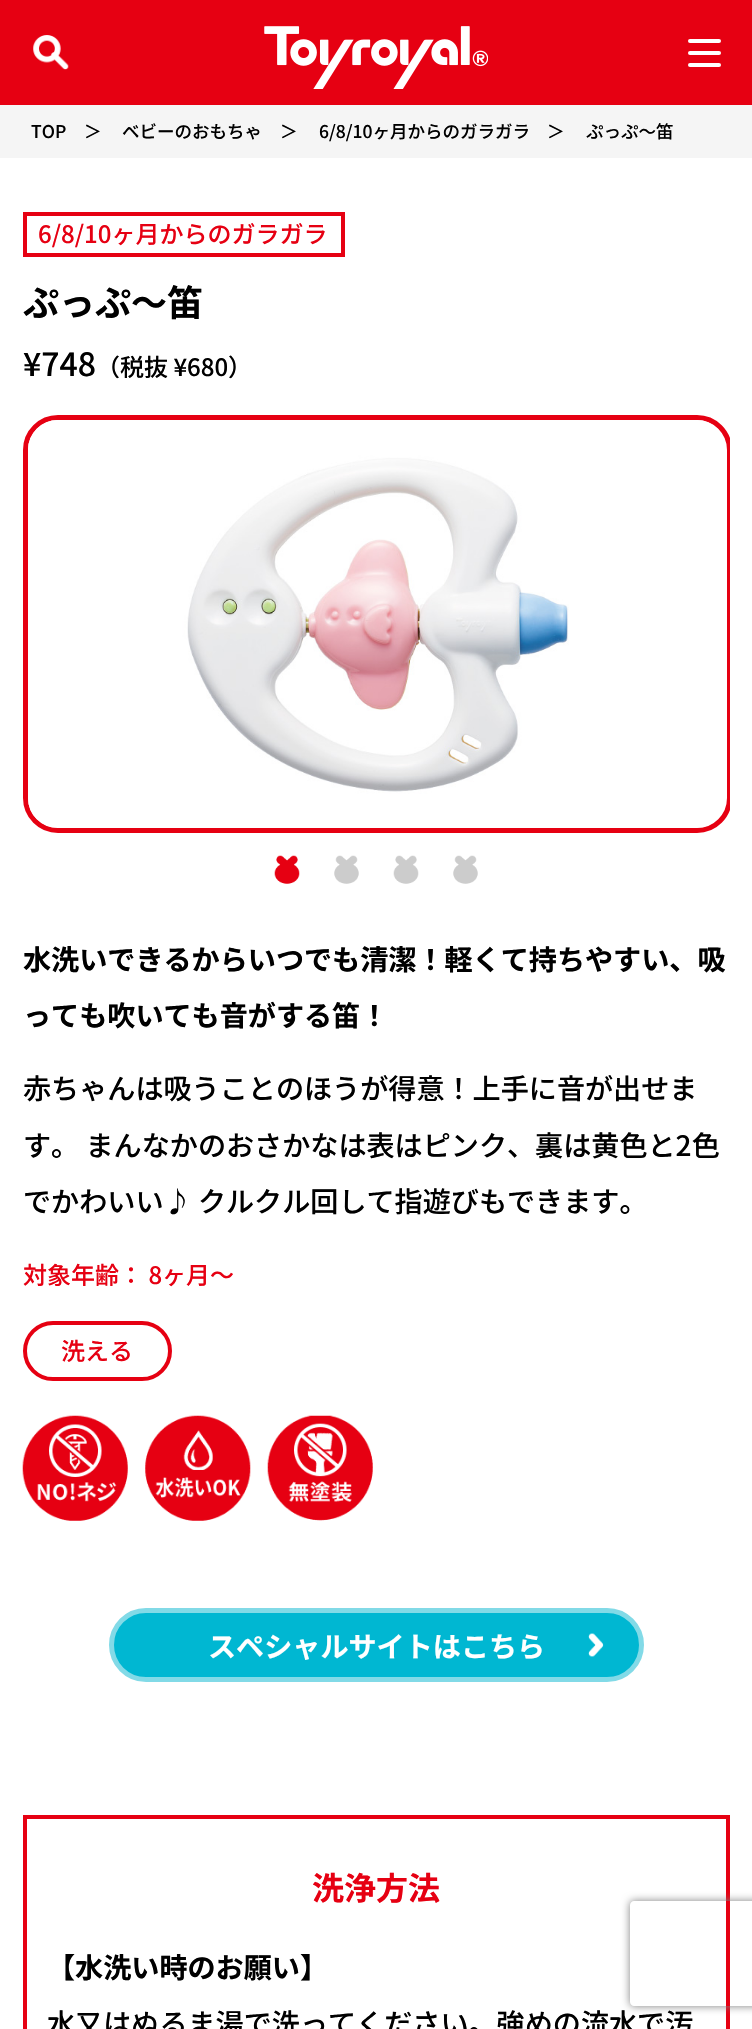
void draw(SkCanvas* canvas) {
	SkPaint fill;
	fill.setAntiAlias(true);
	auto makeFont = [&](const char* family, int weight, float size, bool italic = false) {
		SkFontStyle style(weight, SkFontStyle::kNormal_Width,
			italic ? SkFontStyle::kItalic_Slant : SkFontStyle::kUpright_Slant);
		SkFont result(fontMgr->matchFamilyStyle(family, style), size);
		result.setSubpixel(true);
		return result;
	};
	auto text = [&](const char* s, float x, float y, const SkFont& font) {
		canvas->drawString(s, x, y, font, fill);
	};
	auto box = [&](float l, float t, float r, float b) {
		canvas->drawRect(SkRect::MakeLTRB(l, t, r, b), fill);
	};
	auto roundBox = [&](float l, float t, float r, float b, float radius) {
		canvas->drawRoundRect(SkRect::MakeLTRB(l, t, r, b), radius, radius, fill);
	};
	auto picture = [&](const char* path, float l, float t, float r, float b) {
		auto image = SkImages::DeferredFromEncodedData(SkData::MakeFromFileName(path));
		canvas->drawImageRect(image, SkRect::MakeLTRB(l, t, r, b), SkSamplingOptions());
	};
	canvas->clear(0xFFFFFFFF);
	fill.setColor(0xFFE60012);
	box(0, 0, 752, 105);
	picture("image0.png", 33, 35, 69, 70);
	picture("image1.png", 264, 26, 488, 89);
	fill.setColor(0xFFFFFFFF);
	roundBox(688, 39, 721, 43, 2);
	roundBox(688, 51, 721, 55, 2);
	roundBox(688, 63, 721, 67, 2);
	fill.setColor(0xFFF5F5F5);
	box(0, 105, 752, 158);
	fill.setStyle(SkPaint::kStroke_Style);
	fill.setStrokeWidth(4);
	fill.setColor(0xFFE60012);
	canvas->drawRect(SkRect::MakeLTRB(25, 214, 343, 255), fill);
	canvas->save();
	canvas->clipRect(SkRect::MakeLTRB(23, 415, 730, 886));
	fill.setStrokeWidth(5);
	canvas->drawRoundRect(SkRect::MakeLTRB(25.5f, 417.5f, 729.5f, 830.5f), 32.5f, 32.5f, fill);
	canvas->restore();
	picture("image2.png", 28, 420, 725, 828);
	picture("image3.png", 274, 855, 300, 884);
	picture("image4.png", 334, 855, 359, 884);
	picture("image5.png", 393, 855, 419, 884);
	picture("image4.png", 453, 855, 478, 884);
	fill.setStrokeWidth(4);
	canvas->drawRoundRect(SkRect::MakeLTRB(25, 1323, 170, 1379), 28, 28, fill);
	picture("image6.png", 22, 1415, 128, 1521);
	picture("image7.png", 145, 1415, 251, 1521);
	picture("image8.png", 267, 1415, 373, 1521);
	fill.setStyle(SkPaint::kFill_Style);
	fill.setColor(0xFF00B7D2);
	canvas->drawRoundRect(SkRect::MakeLTRB(111.5f, 1610.5f, 641.5f, 1679.5f), 34.5f, 34.5f, fill);
	fill.setStyle(SkPaint::kStroke_Style);
	fill.setStrokeWidth(5);
	fill.setColor(0xFF82DAE7);
	canvas->drawRoundRect(SkRect::MakeLTRB(111.5f, 1610.5f, 641.5f, 1679.5f), 34.5f, 34.5f, fill);
	picture("image9.png", 588, 1633, 604, 1657);
	fill.setStrokeWidth(4);
	fill.setColor(0xFFE60012);
	canvas->drawRect(SkRect::MakeLTRB(25, 1817, 728, 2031), fill);
	canvas->save();
	canvas->clipPath(SkPathBuilder(SkPathFillType::kEvenOdd).moveTo(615, 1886).lineTo(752, 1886).lineTo(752, 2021).lineTo(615, 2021).close().moveTo(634, 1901).lineTo(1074, 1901).cubicTo(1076, 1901, 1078, 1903, 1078, 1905).lineTo(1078, 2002).cubicTo(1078, 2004, 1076, 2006, 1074, 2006).lineTo(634, 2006).cubicTo(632, 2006, 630, 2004, 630, 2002).lineTo(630, 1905).cubicTo(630, 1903, 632, 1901, 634, 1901).close().detach(), true);
	fill.setStyle(SkPaint::kFill_Style);
	fill.setColor(0xFF808080);
	fill.setMaskFilter(SkMaskFilter::MakeBlur(kNormal_SkBlurStyle, 4.5f));
	canvas->drawRoundRect(SkRect::MakeLTRB(630, 1901, 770, 2006), 4, 4, fill);
	fill.setMaskFilter(nullptr);
	canvas->restore();
	auto font1 = makeFont("Noto Sans JP", 500, 17.5f);
	fill.setColor(0xFF000000);
	text("TOP", 31, 138, font1);
	text("＞", 84, 138, font1);
	text("ベビーのおもちゃ", 122, 138, font1);
	text("＞", 280, 138, font1);
	text("6/8/10ヶ月からのガラガラ", 319, 138, font1);
	text("＞", 547, 138, font1);
	text("ぷっぷ〜笛", 586, 138, font1);
	auto font2 = makeFont("Noto Sans JP", 500, 24);
	fill.setColor(0xFFE60012);
	text("6/8/10ヶ月からのガラガラ", 38, 243, font2);
	auto font3 = makeFont("Noto Sans JP", 700, 36);
	fill.setColor(0xFF000000);
	text("ぷっぷ〜笛", 23, 316, font3);
	auto font4 = makeFont("Noto Sans JP", 500, 32);
	text("¥748", 23, 376, font4);
	text("（税抜 ¥680）", 96, 376, font2);
	auto font5 = makeFont("Noto Sans JP", 700, 28.1f);
	text("水洗いできるからいつでも清潔！軽くて持ちやすい、吸", 23, 970, font5);
	text("っても吹いても音がする笛！", 23, 1026, font5);
	auto font6 = makeFont("Noto Sans JP", 500, 28.1f);
	text("赤ちゃんは吸うことのほうが得意！上手に音が出せま", 23, 1099, font6);
	text("す。 まんなかのおさかなは表はピンク、裏は黄色と2色", 23, 1156, font6);
	text("でかわいい♪ クルクル回して指遊びもできます。", 23, 1212, font6);
	fill.setColor(0xFFE60012);
	text("対象年齢： 8ヶ月～", 23, 1284, font2);
	text("洗える", 61, 1360, font2);
	fill.setColor(0xFFFFFFFF);
	text("スペシャルサイトはこちら", 208, 1657, font5);
	auto font7 = makeFont("Noto Sans JP", 700, 32);
	fill.setColor(0xFFE60012);
	text("洗浄方法", 312, 1900, font7);
	fill.setColor(0xFF000000);
	text("【水洗い時のお願い】", 47, 1978, font5);
	text("水又はぬるま湯で洗ってください。強めの流水で汚", 47, 2034, font6);
}
